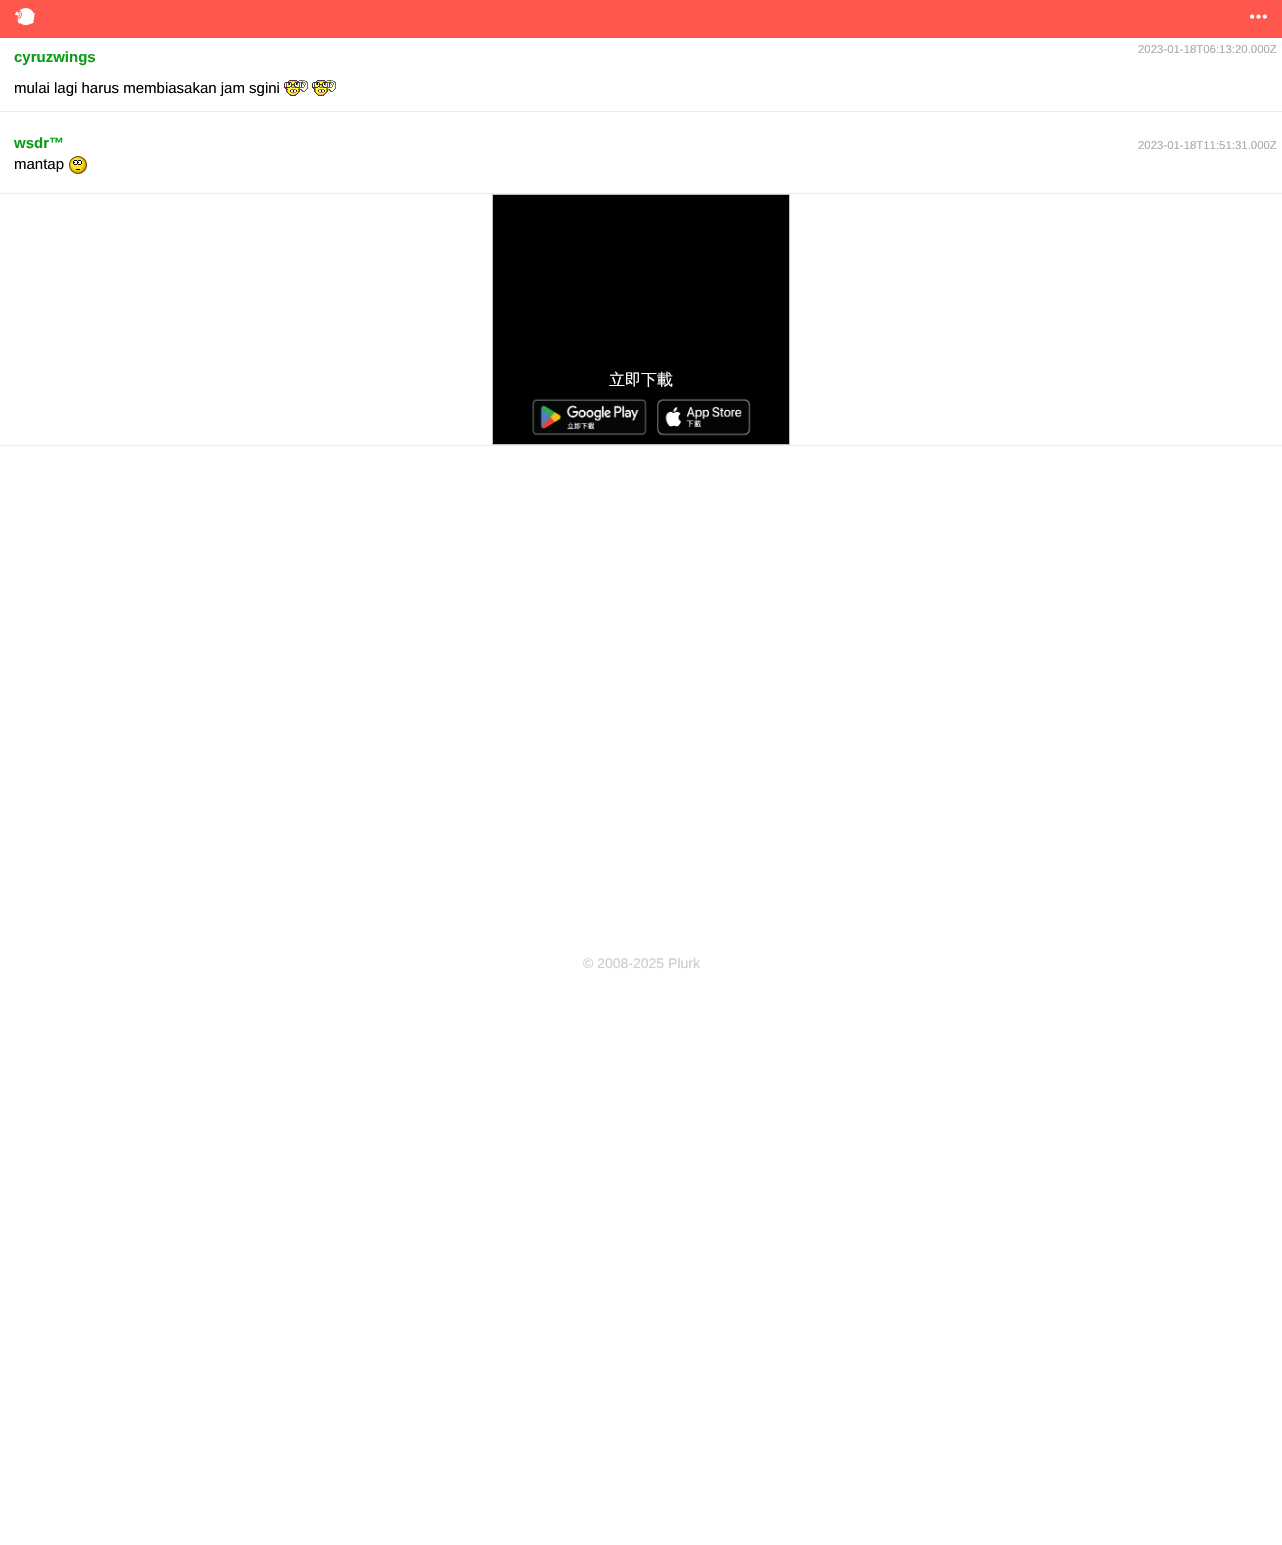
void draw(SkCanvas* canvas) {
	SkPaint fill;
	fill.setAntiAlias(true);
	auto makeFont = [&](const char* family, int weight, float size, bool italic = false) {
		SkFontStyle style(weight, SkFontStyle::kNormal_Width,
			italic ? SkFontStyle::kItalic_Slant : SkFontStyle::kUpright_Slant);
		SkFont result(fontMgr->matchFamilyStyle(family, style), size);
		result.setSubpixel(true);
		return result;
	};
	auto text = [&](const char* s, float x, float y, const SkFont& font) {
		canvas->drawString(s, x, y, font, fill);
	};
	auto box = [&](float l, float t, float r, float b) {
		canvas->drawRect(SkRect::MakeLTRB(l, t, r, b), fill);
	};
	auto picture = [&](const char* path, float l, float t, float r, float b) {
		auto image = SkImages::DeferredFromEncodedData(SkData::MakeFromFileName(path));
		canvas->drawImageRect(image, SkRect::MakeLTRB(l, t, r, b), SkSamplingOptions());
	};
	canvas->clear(0xFFFFFFFF);
	fill.setColor(0xFFFF574D);
	box(0, 0, 1282, 38);
	picture("image0.png", 15, 8, 36, 26);
	picture("image1.png", 1250, 14, 1267, 19);
	fill.setColor(0xFFEEEBF0);
	box(0, 111, 1282, 112);
	picture("image2.png", 284, 80, 308, 96);
	picture("image2.png", 312, 80, 336, 96);
	picture("image3.png", 69, 156, 87, 174);
	fill.setColor(0xFFEEEEEE);
	box(0, 193, 1282, 194);
	box(0, 445, 1282, 446);
	fill.setColor(0xFF000000);
	canvas->drawRect(SkRect::MakeLTRB(492.5f, 194.5f, 789.5f, 444.5f), fill);
	fill.setStyle(SkPaint::kStroke_Style);
	fill.setStrokeWidth(1);
	fill.setColor(0xFFC0C0C0);
	canvas->drawRect(SkRect::MakeLTRB(492.5f, 194.5f, 789.5f, 444.5f), fill);
	picture("image4.png", 532, 398, 751, 436);
	auto font1 = makeFont("Liberation Sans", 400, 11.4f);
	fill.setStyle(SkPaint::kFill_Style);
	fill.setColor(0xFFAAAAAA);
	text("2023-01-18T06:13:20.000Z", 1138, 53, font1);
	auto font2 = makeFont("Liberation Sans", 700, 15);
	fill.setColor(0xFF0A9C17);
	text("cyruzwings", 14, 62, font2);
	auto font3 = makeFont("Liberation Sans", 400, 15);
	fill.setColor(0xFF000000);
	text("mulai lagi harus membiasakan jam sgini", 14, 93, font3);
	fill.setColor(0xFF0A9C17);
	text("wsdr™", 14, 148, font2);
	fill.setColor(0xFFAAAAAA);
	text("2023-01-18T11:51:31.000Z", 1138, 149, font1);
	fill.setColor(0xFF000000);
	text("mantap", 14, 169, font3);
	auto font4 = makeFont("WenQuanYi Zen Hei", 500, 16);
	fill.setColor(0xFFFFFFFF);
	text("立即下載", 609, 385, font4);
	auto font5 = makeFont("Liberation Sans", 400, 14);
	fill.setColor(0xFFCCCCCC);
	text("© 2008-2025 Plurk", 583, 968, font5);
}
